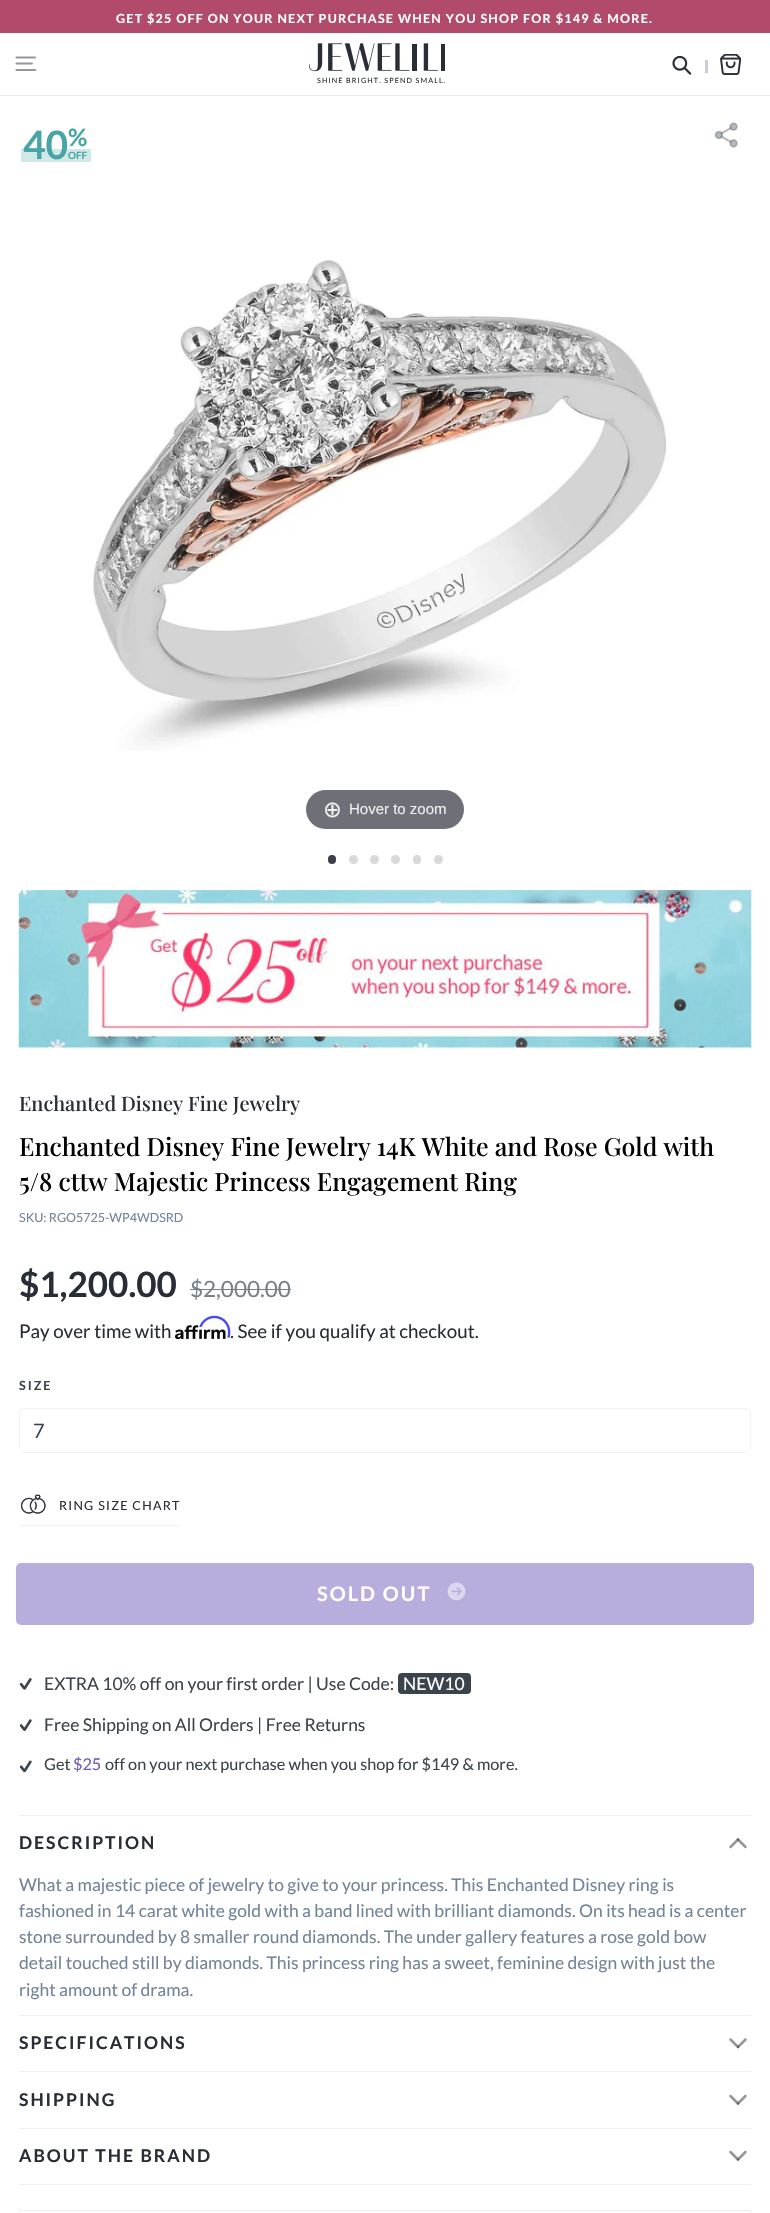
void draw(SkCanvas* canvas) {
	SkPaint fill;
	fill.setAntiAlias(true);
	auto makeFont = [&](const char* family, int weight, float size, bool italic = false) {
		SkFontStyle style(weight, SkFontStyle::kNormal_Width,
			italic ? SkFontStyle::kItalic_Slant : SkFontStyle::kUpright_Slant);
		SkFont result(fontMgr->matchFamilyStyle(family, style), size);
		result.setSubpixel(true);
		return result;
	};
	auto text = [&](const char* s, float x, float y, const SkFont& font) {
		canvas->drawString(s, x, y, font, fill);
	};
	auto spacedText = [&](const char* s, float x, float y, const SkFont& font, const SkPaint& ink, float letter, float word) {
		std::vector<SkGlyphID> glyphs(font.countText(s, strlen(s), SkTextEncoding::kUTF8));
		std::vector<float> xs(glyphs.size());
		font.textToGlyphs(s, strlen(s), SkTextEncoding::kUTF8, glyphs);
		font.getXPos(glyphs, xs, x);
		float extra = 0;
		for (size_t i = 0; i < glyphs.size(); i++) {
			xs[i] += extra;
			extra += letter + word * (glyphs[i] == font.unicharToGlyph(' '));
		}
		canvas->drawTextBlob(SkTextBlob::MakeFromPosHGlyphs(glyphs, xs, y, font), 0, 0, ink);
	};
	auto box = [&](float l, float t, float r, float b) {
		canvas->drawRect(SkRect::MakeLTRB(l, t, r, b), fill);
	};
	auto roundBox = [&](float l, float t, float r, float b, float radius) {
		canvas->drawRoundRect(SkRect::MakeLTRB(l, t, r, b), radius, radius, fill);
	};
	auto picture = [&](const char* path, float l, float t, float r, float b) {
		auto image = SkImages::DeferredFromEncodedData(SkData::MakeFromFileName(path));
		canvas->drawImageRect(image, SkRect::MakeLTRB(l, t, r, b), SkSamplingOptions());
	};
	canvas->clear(0xFFFFFFFF);
	fill.setColor(0xFFB14A6B);
	box(0, 0, 770, 33);
	fill.setColor(0xFFEBEBEB);
	box(0, 95, 770, 96);
	fill.setStyle(SkPaint::kStroke_Style);
	fill.setStrokeWidth(2.1f);
	fill.setStrokeCap(SkPaint::kRound_Cap);
	fill.setColor(0xFF94969B);
	canvas->drawPath(SkPathBuilder().moveTo(16.5f, 57.5f).lineTo(35, 57.5f).moveTo(16.5f, 63.5f).lineTo(32, 63.5f).moveTo(16.5f, 70).lineTo(35, 70).detach(), fill);
	picture("image0.png", 672, 55, 692, 75);
	fill.setStyle(SkPaint::kFill_Style);
	fill.setColor(0xFFC7CDD6);
	box(705, 60, 708, 73);
	picture("image1.png", 720, 54, 741, 75);
	picture("image2.png", 309, 43, 445, 72);
	fill.setColor(0xFFD1E8E8);
	box(21, 149, 91, 162);
	picture("image3.png", 714, 122, 738, 148);
	picture("image4.png", 92, 260, 667, 751);
	fill.setColor(0xFF6F7077);
	roundBox(306, 790, 464, 829, 19.5f);
	fill.setColor(0xFF3D404B);
	roundBox(328, 855, 336, 864, 4);
	fill.setColor(0xFFD8D9DB);
	canvas->drawCircle(353.5f, 859.5f, 4.5f, fill);
	canvas->drawCircle(374.5f, 859.5f, 4.5f, fill);
	canvas->drawCircle(395.5f, 859.5f, 4.5f, fill);
	roundBox(413, 855, 421, 864, 4);
	canvas->drawCircle(438.5f, 859.5f, 4.5f, fill);
	picture("image5.png", 18, 890, 752, 1048);
	fill.setColor(0xFF798089);
	box(190, 1289, 291, 1290);
	picture("image7.png", 175, 1325, 226, 1340);
	picture("image6.png", 199, 1315, 231, 1338);
	fill.setStyle(SkPaint::kStroke_Style);
	fill.setStrokeWidth(1);
	fill.setStrokeCap(SkPaint::kButt_Cap);
	fill.setColor(0xFFF1F3F5);
	canvas->drawRoundRect(SkRect::MakeLTRB(19.5f, 1408.5f, 750.5f, 1452.5f), 4.5f, 4.5f, fill);
	fill.setStyle(SkPaint::kFill_Style);
	box(19, 1525, 180, 1526);
	picture("image8.png", 20, 1494, 46, 1514);
	fill.setColor(0xFFB8ADDC);
	roundBox(16, 1563, 754, 1625, 5);
	picture("image9.png", 447, 1582, 466, 1601);
	picture("image10.png", 19, 1678, 32, 1690);
	fill.setColor(0xFF3B444D);
	roundBox(398, 1673, 471, 1694, 4);
	picture("image11.png", 19, 1719, 32, 1731);
	picture("image12.png", 19, 1760, 32, 1773);
	fill.setColor(0xFFEFEFEF);
	box(19, 1815, 751, 1816);
	fill.setStyle(SkPaint::kStroke_Style);
	fill.setStrokeWidth(2.5f);
	fill.setStrokeCap(SkPaint::kRound_Cap);
	fill.setColor(0xFF95969A);
	canvas->drawPath(SkPathBuilder().moveTo(730.5f, 1847).lineTo(738, 1839.5f).detach(), fill);
	fill.setColor(0x802A2D35);
	canvas->drawPath(SkPathBuilder().moveTo(745.5f, 1847).lineTo(738, 1839.5f).detach(), fill);
	fill.setStyle(SkPaint::kFill_Style);
	fill.setColor(0xFFEFEFEF);
	box(19, 2015, 751, 2016);
	box(19, 2071, 751, 2072);
	fill.setStyle(SkPaint::kStroke_Style);
	fill.setColor(0xFF95969A);
	canvas->drawPath(SkPathBuilder().moveTo(730.5f, 2039.5f).lineTo(738, 2047).detach(), fill);
	fill.setColor(0x802A2D35);
	canvas->drawPath(SkPathBuilder().moveTo(745.5f, 2039.5f).lineTo(738, 2047).detach(), fill);
	fill.setStyle(SkPaint::kFill_Style);
	fill.setColor(0xFFEFEFEF);
	box(19, 2128, 751, 2129);
	fill.setStyle(SkPaint::kStroke_Style);
	fill.setColor(0xFF95969A);
	canvas->drawPath(SkPathBuilder().moveTo(730.5f, 2096).lineTo(738, 2103.5f).detach(), fill);
	fill.setColor(0x802A2D35);
	canvas->drawPath(SkPathBuilder().moveTo(745.5f, 2096).lineTo(738, 2103.5f).detach(), fill);
	fill.setStyle(SkPaint::kFill_Style);
	fill.setColor(0xFFEFEFEF);
	box(19, 2184, 751, 2185);
	fill.setStyle(SkPaint::kStroke_Style);
	fill.setColor(0xFF95969A);
	canvas->drawPath(SkPathBuilder().moveTo(730.5f, 2152).lineTo(738, 2159.5f).detach(), fill);
	fill.setColor(0x802A2D35);
	canvas->drawPath(SkPathBuilder().moveTo(745.5f, 2152).lineTo(738, 2159.5f).detach(), fill);
	fill.setStrokeWidth(1);
	fill.setStrokeCap(SkPaint::kButt_Cap);
	fill.setColor(0xFFEEEEEE);
	canvas->drawRect(SkRect::MakeLTRB(19.5f, 2210.5f, 750.5f, 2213.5f), fill);
	auto font1 = makeFont("Lato", 700, 12.5f);
	fill.setStyle(SkPaint::kFill_Style);
	fill.setColor(0xFFFFFFFF);
	spacedText("GET $25 OFF ON YOUR NEXT PURCHASE WHEN YOU SHOP FOR $149 & MORE.", 116, 23, font1, fill, 1.25f, 0);
	auto font2 = makeFont("Lato", 400, 7.2f);
	fill.setColor(0xFF292D36);
	spacedText("SHINE BRIGHT. SPEND SMALL.", 317, 83, font2, fill, 1.1f, 0);
	auto font3 = makeFont("Lato", 700, 39);
	fill.setColor(0xFF47A5A5);
	text("40", 23, 159, font3);
	auto font4 = makeFont("Lato", 700, 24);
	text("%", 68, 146, font4);
	auto font5 = makeFont("Lato", 700, 10);
	text("OFF", 68, 159, font5);
	auto font6 = makeFont("DejaVu Sans", 400, 22.5f);
	fill.setColor(0xFFEEEEEE);
	text("⊕", 323, 817, font6);
	auto font7 = makeFont("Liberation Sans", 400, 15);
	text("Hover to zoom", 349, 814, font7);
	auto font8 = makeFont("Playfair Display", 500, 20);
	fill.setColor(0xFF292D36);
	text("Enchanted Disney Fine Jewelry", 19, 1111, font8);
	auto font9 = makeFont("Playfair Display", 500, 25);
	fill.setColor(0xFF000000);
	text("Enchanted Disney Fine Jewelry 14K White and Rose Gold with", 19, 1156, font9);
	text("5/8 cttw Majestic Princess Engagement Ring", 19, 1191, font9);
	auto font10 = makeFont("Lato", 400, 12.5f);
	fill.setColor(0xFF738398);
	text("SKU: RGO5725-WP4WDSRD", 19, 1222, font10);
	auto font11 = makeFont("Lato", 700, 35);
	fill.setColor(0xFF292D36);
	text("$1,200.00", 19, 1297, font11);
	auto font12 = makeFont("Lato", 400, 22.5f);
	fill.setColor(0xFF798089);
	text("$2,000.00", 190, 1297, font12);
	auto font13 = makeFont("Lato", 400, 18.75f);
	fill.setColor(0xFF292D36);
	text("Pay over time with", 19, 1338, font13);
	text(". See if you qualify at checkout.", 230, 1338, font13);
	fill.setColor(0xFF3B444D);
	spacedText("SIZE", 19, 1390, font1, fill, 2, 0);
	auto font14 = makeFont("Lato", 400, 20);
	text("7", 33, 1438, font14);
	fill.setColor(0xFF292D36);
	spacedText("RING SIZE CHART", 59, 1510, font10, fill, 1.25f, 0);
	auto font15 = makeFont("Lato", 700, 20);
	fill.setColor(0xFFFFFFFF);
	spacedText("SOLD OUT", 317, 1601, font15, fill, 2, 0);
	auto font16 = makeFont("Lato", 400, 17.5f);
	fill.setColor(0xFF3B444D);
	text("EXTRA 10% off on your first order | Use Code:", 44, 1690, font16);
	fill.setColor(0xFFFFFFFF);
	text("NEW10", 403, 1690, font16);
	fill.setColor(0xFF3B444D);
	text("Free Shipping on All Orders | Free Returns", 44, 1731, font16);
	auto font17 = makeFont("Lato", 400, 16.25f);
	text("Get", 44, 1770, font17);
	fill.setColor(0xFF705BB8);
	text("$25", 73, 1770, font17);
	fill.setColor(0xFF3B444D);
	text("off on your next purchase when you shop for $149 & more.", 105, 1770, font17);
	auto font18 = makeFont("Lato", 700, 17.5f);
	fill.setColor(0xFF292D36);
	spacedText("DESCRIPTION", 19, 1849, font18, fill, 2, 0);
	fill.setColor(0xFF738398);
	text("What a majestic piece of jewelry to give to your princess. This Enchanted Disney ring is", 19, 1891, font16);
	text("fashioned in 14 carat white gold with a band lined with brilliant diamonds. On its head is a center", 19, 1917, font16);
	text("stone surrounded by 8 smaller round diamonds. The under gallery features a rose gold bow", 19, 1943, font16);
	text("detail touched still by diamonds. This princess ring has a sweet, feminine design with just the", 19, 1969, font16);
	text("right amount of drama.", 19, 1996, font16);
	fill.setColor(0xFF292D36);
	spacedText("SPECIFICATIONS", 19, 2049, font18, fill, 2, 0);
	spacedText("SHIPPING", 19, 2106, font18, fill, 2, 0);
	spacedText("ABOUT THE BRAND", 19, 2162, font18, fill, 2, 0);
}
